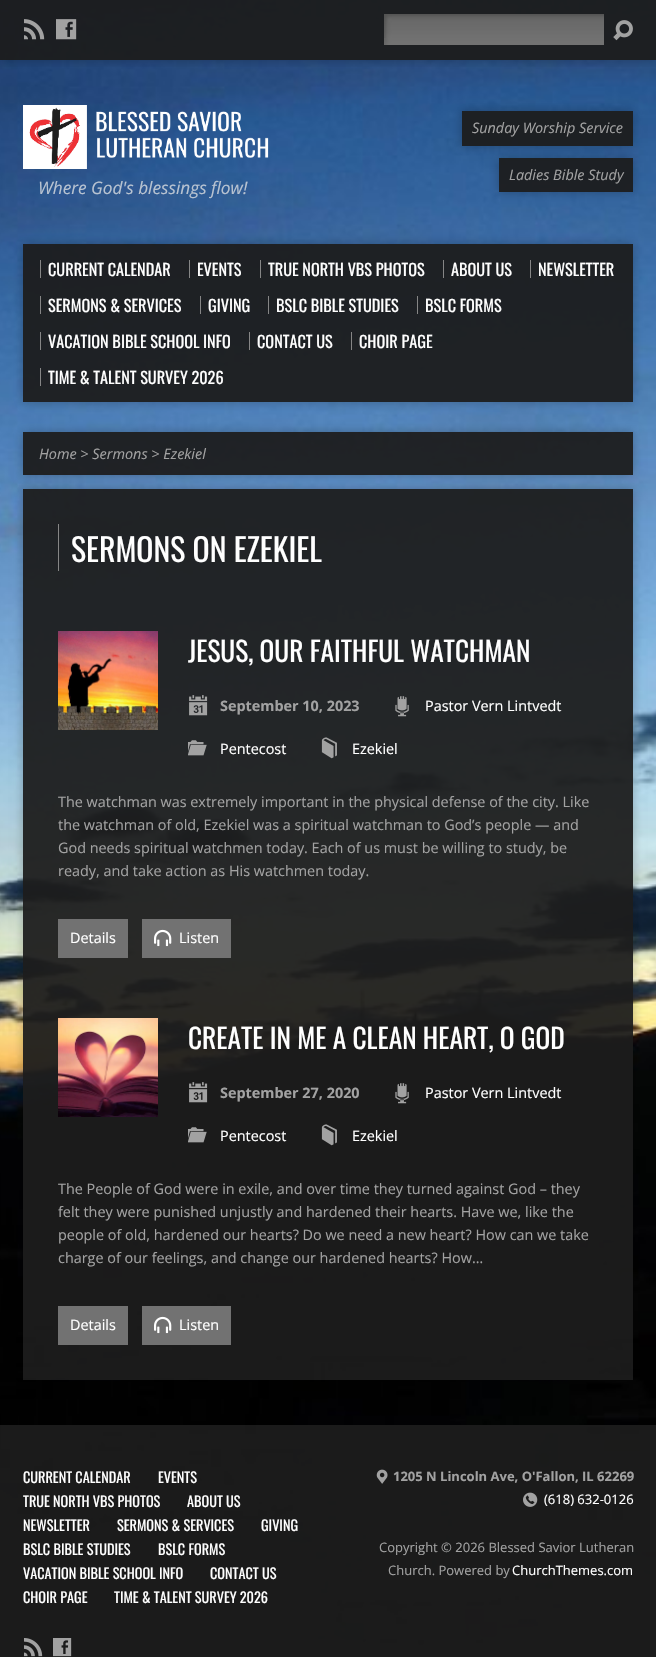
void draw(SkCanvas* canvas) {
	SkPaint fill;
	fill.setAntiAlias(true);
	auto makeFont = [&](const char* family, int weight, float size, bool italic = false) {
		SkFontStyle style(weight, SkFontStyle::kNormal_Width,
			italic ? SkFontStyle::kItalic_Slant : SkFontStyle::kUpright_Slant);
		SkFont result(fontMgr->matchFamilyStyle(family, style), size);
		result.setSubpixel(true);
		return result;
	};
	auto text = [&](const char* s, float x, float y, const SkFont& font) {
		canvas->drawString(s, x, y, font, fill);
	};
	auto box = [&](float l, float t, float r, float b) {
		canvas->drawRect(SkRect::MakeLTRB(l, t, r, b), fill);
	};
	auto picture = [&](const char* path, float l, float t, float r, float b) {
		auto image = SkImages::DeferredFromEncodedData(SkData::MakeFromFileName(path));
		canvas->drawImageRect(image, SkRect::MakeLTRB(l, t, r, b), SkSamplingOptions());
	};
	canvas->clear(0xFFFFFFFF);
	picture("image0.png", 0, 0, 656, 1657);
	canvas->save();
	canvas->clipRect(SkRect::MakeLTRB(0, 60, 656, 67));
	fill.setColor(0x40000000);
	fill.setMaskFilter(SkMaskFilter::MakeBlur(kNormal_SkBlurStyle, 5));
	canvas->drawRect(SkRect::MakeLTRB(0, 0, 656, 60), fill);
	fill.setMaskFilter(nullptr);
	canvas->restore();
	fill.setColor(0xF01C1C1C);
	box(0, 0, 656, 60);
	picture("image1.png", 24, 19, 45, 40);
	picture("image2.png", 56, 19, 77, 40);
	picture("image3.png", 384, 14, 604, 45);
	picture("image4.png", 613, 20, 633, 41);
	canvas->save();
	canvas->clipPath(SkPathBuilder(SkPathFillType::kEvenOdd).moveTo(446, 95).lineTo(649, 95).lineTo(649, 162).lineTo(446, 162).close().moveTo(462, 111).lineTo(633, 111).lineTo(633, 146).lineTo(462, 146).close().detach(), true);
	fill.setColor(0x40000000);
	fill.setMaskFilter(SkMaskFilter::MakeBlur(kNormal_SkBlurStyle, 5));
	canvas->drawRect(SkRect::MakeLTRB(462, 111, 633, 146), fill);
	fill.setMaskFilter(nullptr);
	canvas->restore();
	fill.setColor(0xF01C1C1C);
	box(462, 111, 633, 146);
	canvas->save();
	canvas->clipPath(SkPathBuilder(SkPathFillType::kEvenOdd).moveTo(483, 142).lineTo(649, 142).lineTo(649, 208).lineTo(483, 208).close().moveTo(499, 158).lineTo(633, 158).lineTo(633, 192).lineTo(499, 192).close().detach(), true);
	fill.setColor(0x40000000);
	fill.setMaskFilter(SkMaskFilter::MakeBlur(kNormal_SkBlurStyle, 5));
	canvas->drawRect(SkRect::MakeLTRB(499, 158, 633, 192), fill);
	fill.setMaskFilter(nullptr);
	canvas->restore();
	fill.setColor(0xF01C1C1C);
	box(499, 158, 633, 192);
	picture("image5.png", 23, 105, 269, 169);
	canvas->save();
	canvas->clipPath(SkPathBuilder(SkPathFillType::kEvenOdd).moveTo(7, 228).lineTo(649, 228).lineTo(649, 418).lineTo(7, 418).close().moveTo(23, 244).lineTo(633, 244).lineTo(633, 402).lineTo(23, 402).close().detach(), true);
	fill.setColor(0x40000000);
	fill.setMaskFilter(SkMaskFilter::MakeBlur(kNormal_SkBlurStyle, 5));
	canvas->drawRect(SkRect::MakeLTRB(23, 244, 633, 402), fill);
	fill.setMaskFilter(nullptr);
	canvas->restore();
	fill.setColor(0xF01C1C1C);
	box(23, 244, 633, 402);
	fill.setColor(0xFF868686);
	box(40, 260, 41, 278);
	box(189, 260, 190, 278);
	box(260, 260, 261, 278);
	box(443, 260, 444, 278);
	box(530, 260, 531, 278);
	box(40, 296, 41, 314);
	box(200, 296, 201, 314);
	box(268, 296, 269, 314);
	box(417, 296, 418, 314);
	box(40, 332, 41, 350);
	box(249, 332, 250, 350);
	box(351, 332, 352, 350);
	box(40, 368, 41, 386);
	canvas->save();
	canvas->clipPath(SkPathBuilder(SkPathFillType::kEvenOdd).moveTo(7, 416).lineTo(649, 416).lineTo(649, 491).lineTo(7, 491).close().moveTo(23, 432).lineTo(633, 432).lineTo(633, 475).lineTo(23, 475).close().detach(), true);
	fill.setColor(0x40000000);
	fill.setMaskFilter(SkMaskFilter::MakeBlur(kNormal_SkBlurStyle, 5));
	canvas->drawRect(SkRect::MakeLTRB(23, 432, 633, 475), fill);
	fill.setMaskFilter(nullptr);
	canvas->restore();
	fill.setColor(0xF01C1C1C);
	box(23, 432, 633, 475);
	canvas->save();
	canvas->clipPath(SkPathBuilder(SkPathFillType::kEvenOdd).moveTo(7, 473).lineTo(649, 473).lineTo(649, 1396).lineTo(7, 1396).close().moveTo(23, 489).lineTo(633, 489).lineTo(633, 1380).lineTo(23, 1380).close().detach(), true);
	fill.setColor(0x40000000);
	fill.setMaskFilter(SkMaskFilter::MakeBlur(kNormal_SkBlurStyle, 5));
	canvas->drawRect(SkRect::MakeLTRB(23, 489, 633, 1380), fill);
	fill.setMaskFilter(nullptr);
	canvas->restore();
	fill.setColor(0xF01C1C1C);
	box(23, 489, 633, 1380);
	fill.setColor(0xFF868686);
	box(58, 524, 59, 571);
	picture("image6.png", 58, 631, 158, 730);
	picture("image7.png", 189, 695, 208, 716);
	picture("image8.png", 395, 696, 409, 717);
	picture("image9.png", 188, 740, 207, 756);
	picture("image10.png", 321, 737, 337, 759);
	fill.setColor(0xFF727272);
	box(58, 919, 128, 958);
	box(142, 919, 231, 958);
	picture("image11.png", 154, 929, 172, 947);
	picture("image12.png", 58, 1018, 158, 1117);
	picture("image13.png", 189, 1082, 208, 1103);
	picture("image14.png", 395, 1083, 409, 1104);
	picture("image15.png", 188, 1127, 207, 1143);
	picture("image16.png", 321, 1124, 337, 1146);
	box(58, 1306, 128, 1345);
	box(142, 1306, 231, 1345);
	picture("image11.png", 154, 1316, 172, 1334);
	fill.setColor(0xF01C1C1C);
	box(0, 1425, 656, 1657);
	picture("image17.png", 24, 1638, 43, 1657);
	picture("image18.png", 53, 1638, 72, 1657);
	picture("image19.png", 376, 1469, 388, 1484);
	picture("image20.png", 523, 1492, 538, 1507);
	auto font1 = makeFont("Open Sans", 400, 14.4f, true);
	fill.setColor(0xFFA2A2A2);
	text("Sunday Worship Service", 472, 133, font1);
	text("Ladies Bible Study", 509, 180, font1);
	auto font2 = makeFont("Open Sans", 400, 17.25f, true);
	fill.setColor(0xFFB8C3D1);
	text("Where God's blessings flow!", 38, 194, font2);
	auto font3 = makeFont("Oswald", 400, 16.25f);
	fill.setColor(0xFFFFFFFF);
	text("CURRENT CALENDAR", 48, 276, font3);
	text("EVENTS", 197, 276, font3);
	text("TRUE NORTH VBS PHOTOS", 268, 276, font3);
	text("ABOUT US", 451, 276, font3);
	text("NEWSLETTER", 538, 276, font3);
	text("SERMONS & SERVICES", 48, 312, font3);
	text("GIVING", 208, 312, font3);
	text("BSLC BIBLE STUDIES", 276, 312, font3);
	text("BSLC FORMS", 425, 312, font3);
	text("VACATION BIBLE SCHOOL INFO", 48, 348, font3);
	text("CONTACT US", 257, 348, font3);
	text("CHOIR PAGE", 359, 348, font3);
	text("TIME & TALENT SURVEY 2026", 48, 384, font3);
	fill.setColor(0xFFA2A2A2);
	text("Home > Sermons > Ezekiel", 39, 459, font1);
	auto font4 = makeFont("Oswald", 400, 31.75f);
	fill.setColor(0xFFFFFFFF);
	text("SERMONS ON EZEKIEL", 71, 562, font4);
	auto font5 = makeFont("Oswald", 400, 27.4f);
	text("JESUS, OUR FAITHFUL WATCHMAN", 188, 662, font5);
	auto font6 = makeFont("Open Sans", 700, 14.4f);
	fill.setColor(0xFFA2A2A2);
	text("September 10, 2023", 220, 711, font6);
	auto font7 = makeFont("Open Sans", 400, 14.4f);
	fill.setColor(0xFFFFFFFF);
	text("Pastor Vern Lintvedt", 425, 711, font7);
	text("Pentecost", 220, 754, font7);
	text("Ezekiel", 352, 754, font7);
	fill.setColor(0xFFA2A2A2);
	text("The watchman was extremely important in the physical defense of the city. Like", 58, 807, font7);
	text("the watchman of old, Ezekiel was a spiritual watchman to God’s people — and", 58, 830, font7);
	text("God needs spiritual watchmen today. Each of us must be willing to study, be", 58, 853, font7);
	text("ready, and take action as His watchmen today.", 58, 876, font7);
	fill.setColor(0xFFFFFFFF);
	text("Details", 70, 943, font7);
	text("Listen", 179, 943, font7);
	text("CREATE IN ME A CLEAN HEART, O GOD", 188, 1049, font5);
	fill.setColor(0xFFA2A2A2);
	text("September 27, 2020", 220, 1098, font6);
	fill.setColor(0xFFFFFFFF);
	text("Pastor Vern Lintvedt", 425, 1098, font7);
	text("Pentecost", 220, 1141, font7);
	text("Ezekiel", 352, 1141, font7);
	fill.setColor(0xFFA2A2A2);
	text("The People of God were in exile, and over time they turned against God – they", 58, 1194, font7);
	text("felt they were punished unjustly and hardened their hearts. Have we, like the", 58, 1217, font7);
	text("people of old, hardened our hearts? Do we need a new heart? How can we take", 58, 1240, font7);
	text("charge of our feelings, and change our hardened hearts? How…", 58, 1263, font7);
	fill.setColor(0xFFFFFFFF);
	text("Details", 70, 1330, font7);
	text("Listen", 179, 1330, font7);
	auto font8 = makeFont("Oswald", 400, 14.25f);
	text("CURRENT CALENDAR", 23, 1483, font8);
	text("EVENTS", 158, 1483, font8);
	text("TRUE NORTH VBS PHOTOS", 23, 1507, font8);
	text("ABOUT US", 187, 1507, font8);
	text("NEWSLETTER", 23, 1531, font8);
	text("SERMONS & SERVICES", 117, 1531, font8);
	text("GIVING", 261, 1531, font8);
	text("BSLC BIBLE STUDIES", 23, 1555, font8);
	text("BSLC FORMS", 158, 1555, font8);
	text("VACATION BIBLE SCHOOL INFO", 23, 1579, font8);
	text("CONTACT US", 210, 1579, font8);
	text("CHOIR PAGE", 23, 1603, font8);
	text("TIME & TALENT SURVEY 2026", 114, 1603, font8);
	auto font9 = makeFont("Open Sans", 700, 13);
	fill.setColor(0xFFA2A2A2);
	text("1205 N Lincoln Ave, O'Fallon, IL 62269", 393, 1481, font9);
	auto font10 = makeFont("Open Sans", 400, 13);
	fill.setColor(0xFFFFFFFF);
	text("(618) 632-0126", 544, 1504, font10);
	fill.setColor(0xFFA2A2A2);
	text("Copyright © 2026 Blessed Savior Lutheran", 379, 1552, font10);
	text("Church. Powered by", 388, 1575, font10);
	fill.setColor(0xFFFFFFFF);
	text("ChurchThemes.com", 512, 1575, font10);
}
